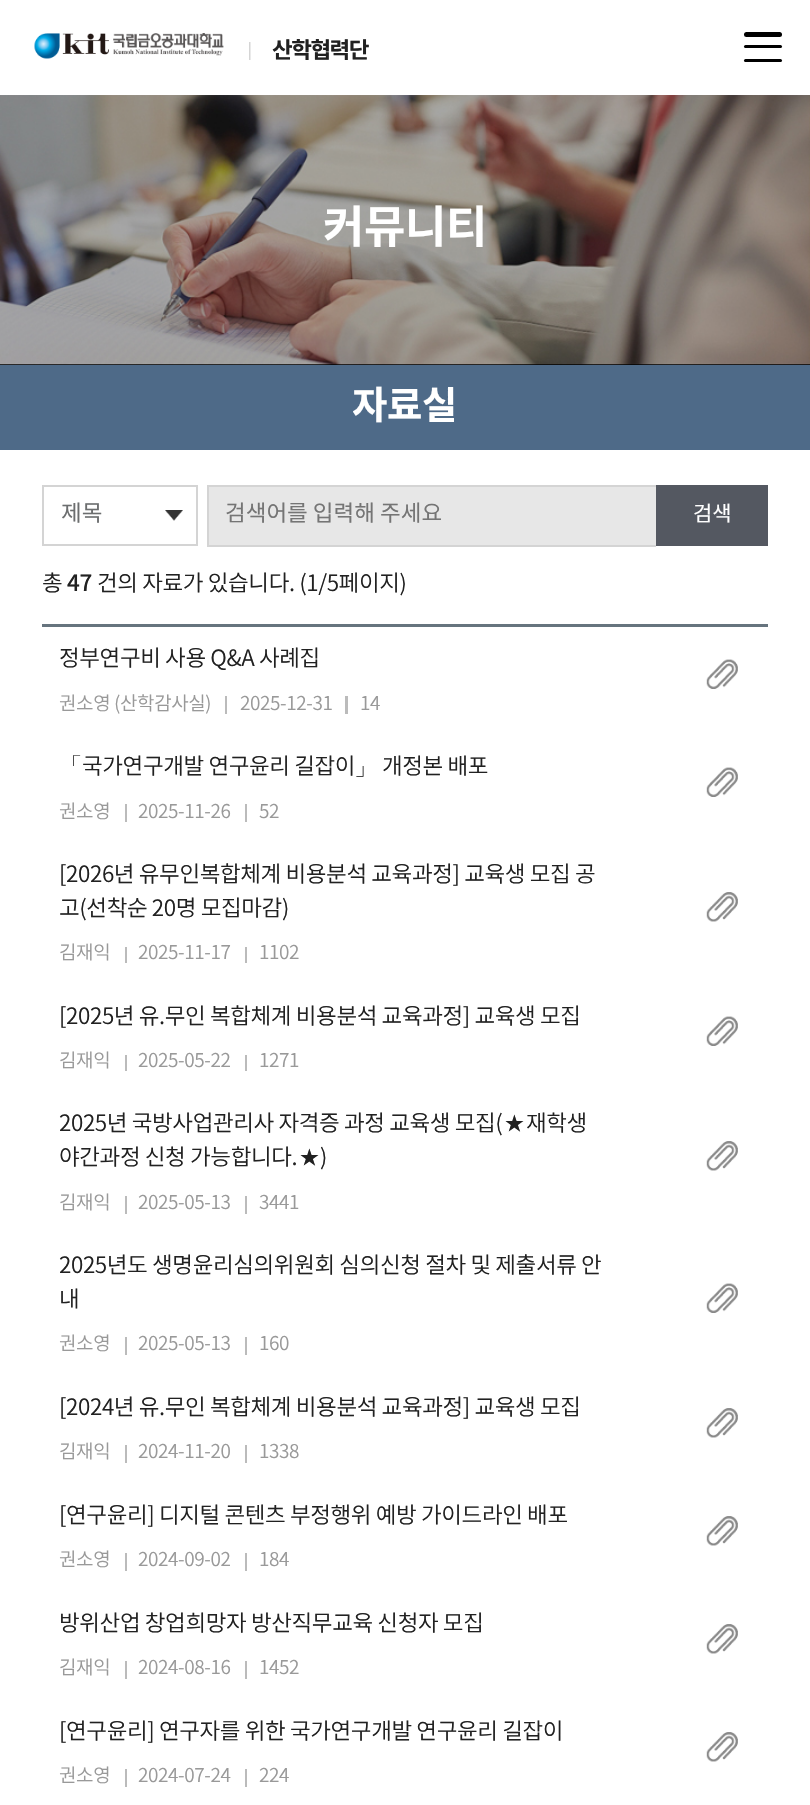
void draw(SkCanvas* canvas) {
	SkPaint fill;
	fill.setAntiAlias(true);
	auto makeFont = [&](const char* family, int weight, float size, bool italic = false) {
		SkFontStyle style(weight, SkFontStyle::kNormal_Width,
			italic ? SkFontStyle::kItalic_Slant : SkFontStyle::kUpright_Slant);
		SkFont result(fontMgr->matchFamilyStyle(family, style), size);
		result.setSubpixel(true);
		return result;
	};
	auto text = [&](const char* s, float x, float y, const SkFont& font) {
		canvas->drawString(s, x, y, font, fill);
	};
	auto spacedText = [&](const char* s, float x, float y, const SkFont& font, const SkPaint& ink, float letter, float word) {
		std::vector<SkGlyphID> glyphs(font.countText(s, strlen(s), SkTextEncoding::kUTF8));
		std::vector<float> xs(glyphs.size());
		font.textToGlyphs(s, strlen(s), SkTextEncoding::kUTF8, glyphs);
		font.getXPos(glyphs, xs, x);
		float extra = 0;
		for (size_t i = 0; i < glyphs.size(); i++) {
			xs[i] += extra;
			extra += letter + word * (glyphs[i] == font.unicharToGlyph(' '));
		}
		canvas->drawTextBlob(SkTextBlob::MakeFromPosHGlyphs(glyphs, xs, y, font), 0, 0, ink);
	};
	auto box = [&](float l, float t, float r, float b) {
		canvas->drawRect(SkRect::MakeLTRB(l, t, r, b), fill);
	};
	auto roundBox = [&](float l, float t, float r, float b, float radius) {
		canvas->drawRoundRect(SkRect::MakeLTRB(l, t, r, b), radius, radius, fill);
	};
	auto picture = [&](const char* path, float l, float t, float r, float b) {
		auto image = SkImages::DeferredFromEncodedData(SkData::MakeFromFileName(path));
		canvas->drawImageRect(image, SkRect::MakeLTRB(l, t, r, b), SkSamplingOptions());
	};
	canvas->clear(0xFFFFFFFF);
	picture("image0.png", 34, 33, 224, 59);
	picture("image1.png", 249, 42, 251, 60);
	fill.setColor(0xFF000000);
	roundBox(744, 32, 782, 37, 2.5f);
	roundBox(744, 45, 782, 48, 1.5f);
	roundBox(744, 59, 782, 62, 1.5f);
	box(0, 364, 810, 365);
	picture("image2.png", 0, 95, 810, 365);
	fill.setColor(0xFF4E6A88);
	box(0, 365, 810, 450);
	picture("image3.png", 165, 510, 183, 521);
	fill.setStyle(SkPaint::kStroke_Style);
	fill.setStrokeWidth(2);
	fill.setColor(0xFFD4D4D4);
	canvas->drawRect(SkRect::MakeLTRB(43, 486, 197, 545), fill);
	fill.setStyle(SkPaint::kFill_Style);
	fill.setColor(0xFFE7E7E7);
	box(209, 487, 656, 545);
	fill.setColor(0xFFD4D4D4);
	box(207, 485, 656, 487);
	box(207, 545, 656, 547);
	box(207, 485, 209, 546);
	fill.setColor(0xFF545861);
	box(656, 485, 768, 546);
	fill.setColor(0xFF66747E);
	box(42, 624, 768, 627);
	fill.setColor(0xFFBBBBBB);
	box(225, 696, 227, 714);
	box(345, 696, 348, 714);
	picture("image4.png", 706, 659, 738, 689);
	box(125, 804, 127, 822);
	box(245, 804, 247, 822);
	picture("image4.png", 706, 767, 738, 797);
	box(125, 947, 127, 963);
	box(245, 947, 247, 963);
	picture("image5.png", 706, 892, 738, 922);
	box(125, 1055, 127, 1071);
	box(245, 1055, 247, 1071);
	picture("image4.png", 706, 1016, 738, 1046);
	box(125, 1196, 127, 1214);
	box(245, 1196, 247, 1214);
	picture("image5.png", 706, 1141, 738, 1171);
	box(125, 1337, 127, 1355);
	box(245, 1337, 247, 1355);
	picture("image4.png", 706, 1283, 738, 1313);
	box(125, 1445, 127, 1463);
	box(245, 1445, 247, 1463);
	picture("image5.png", 706, 1408, 738, 1438);
	box(125, 1553, 127, 1571);
	box(245, 1553, 247, 1571);
	picture("image5.png", 706, 1516, 738, 1546);
	box(125, 1661, 127, 1679);
	box(245, 1661, 247, 1679);
	picture("image5.png", 706, 1624, 738, 1654);
	box(125, 1769, 127, 1787);
	box(245, 1769, 247, 1787);
	picture("image5.png", 706, 1732, 738, 1762);
	auto font1 = makeFont("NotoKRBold", 700, 22.5f);
	fill.setColor(0xFF212121);
	spacedText("산학협력단", 272, 58, font1, fill, -1.5f, 0);
	auto font2 = makeFont("NotoKRBold", 700, 45);
	fill.setColor(0xFFFFFFFF);
	spacedText("커뮤니티", 323, 243, font2, fill, -0.4f, 0);
	auto font3 = makeFont("NotoKRBold", 700, 38.5f);
	spacedText("자료실", 352, 419, font3, fill, -0.4f, 0);
	auto font4 = makeFont("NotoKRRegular", 400, 22.5f);
	fill.setColor(0xFF6C6E6F);
	text("제목", 61, 521, font4);
	fill.setColor(0xFF757575);
	text("검색어를 입력해 주세요", 225, 521, font4);
	auto font5 = makeFont("NotoKRRegular", 400, 21);
	fill.setColor(0xFFFFFFFF);
	text("검색", 693, 521, font5);
	auto font6 = makeFont("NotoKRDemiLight", 300, 22.5f);
	fill.setColor(0xFF212121);
	spacedText("총", 42, 591, font6, fill, -0.4f, 0);
	auto font7 = makeFont("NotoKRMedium", 500, 22.5f);
	spacedText("47", 67, 591, font7, fill, -0.4f, 0);
	spacedText("건의 자료가 있습니다. (1/5페이지)", 97, 591, font6, fill, -0.4f, 0);
	spacedText("정부연구비 사용 Q&A 사례집", 59, 666, font6, fill, -0.4f, 0);
	auto font8 = makeFont("NotoKRDemiLight", 300, 19);
	fill.setColor(0xFF999999);
	spacedText("권소영 (산학감사실)", 59, 710, font8, fill, -0.4f, 0);
	spacedText("2025-12-31", 240, 710, font8, fill, -0.4f, 0);
	spacedText("14", 360, 710, font8, fill, -0.4f, 0);
	auto font9 = makeFont("Dotum", 400, 22.5f);
	fill.setColor(0xFF212121);
	spacedText("「", 59, 774, font9, fill, -0.4f, 0);
	spacedText("국가연구개발 연구윤리 길잡이", 82, 774, font6, fill, -0.4f, 0);
	spacedText("」", 355, 774, font9, fill, -0.4f, 0);
	spacedText("개정본 배포", 382, 774, font6, fill, -0.4f, 0);
	fill.setColor(0xFF999999);
	spacedText("권소영", 59, 818, font8, fill, -0.4f, 0);
	spacedText("2025-11-26", 138, 818, font8, fill, -0.4f, 0);
	spacedText("52", 259, 818, font8, fill, -0.4f, 0);
	fill.setColor(0xFF212121);
	spacedText("[2026년 유무인복합체계 비용분석 교육과정] 교육생 모집 공", 59, 882, font6, fill, -0.4f, 0);
	spacedText("고(선착순 20명 모집마감)", 59, 916, font6, fill, -0.4f, 0);
	fill.setColor(0xFF999999);
	spacedText("김재익", 59, 959, font8, fill, -0.4f, 0);
	spacedText("2025-11-17", 138, 959, font8, fill, -0.4f, 0);
	spacedText("1102", 259, 959, font8, fill, -0.4f, 0);
	fill.setColor(0xFF212121);
	spacedText("[2025년 유.무인 복합체계 비용분석 교육과정] 교육생 모집", 59, 1024, font6, fill, -0.4f, 0);
	fill.setColor(0xFF999999);
	spacedText("김재익", 59, 1067, font8, fill, -0.4f, 0);
	spacedText("2025-05-22", 138, 1067, font8, fill, -0.4f, 0);
	spacedText("1271", 259, 1067, font8, fill, -0.4f, 0);
	fill.setColor(0xFF212121);
	spacedText("2025년 국방사업관리사 자격증 과정 교육생 모집(", 59, 1131, font6, fill, -0.4f, 0);
	spacedText("★", 503, 1131, font9, fill, -0.4f, 0);
	spacedText("재학생", 526, 1131, font6, fill, -0.4f, 0);
	spacedText("야간과정 신청 가능합니다.", 59, 1165, font6, fill, -0.4f, 0);
	spacedText("★", 298, 1165, font9, fill, -0.4f, 0);
	spacedText(")", 320, 1165, font6, fill, -0.4f, 0);
	fill.setColor(0xFF999999);
	spacedText("김재익", 59, 1209, font8, fill, -0.4f, 0);
	spacedText("2025-05-13", 138, 1209, font8, fill, -0.4f, 0);
	spacedText("3441", 259, 1209, font8, fill, -0.4f, 0);
	fill.setColor(0xFF212121);
	spacedText("2025년도 생명윤리심의위원회 심의신청 절차 및 제출서류 안", 59, 1273, font6, fill, -0.4f, 0);
	spacedText("내", 59, 1307, font6, fill, -0.4f, 0);
	fill.setColor(0xFF999999);
	spacedText("권소영", 59, 1350, font8, fill, -0.4f, 0);
	spacedText("2025-05-13", 138, 1350, font8, fill, -0.4f, 0);
	spacedText("160", 259, 1350, font8, fill, -0.4f, 0);
	fill.setColor(0xFF212121);
	spacedText("[2024년 유.무인 복합체계 비용분석 교육과정] 교육생 모집", 59, 1415, font6, fill, -0.4f, 0);
	fill.setColor(0xFF999999);
	spacedText("김재익", 59, 1458, font8, fill, -0.4f, 0);
	spacedText("2024-11-20", 138, 1458, font8, fill, -0.4f, 0);
	spacedText("1338", 259, 1458, font8, fill, -0.4f, 0);
	fill.setColor(0xFF212121);
	spacedText("[연구윤리] 디지털 콘텐츠 부정행위 예방 가이드라인 배포", 59, 1523, font6, fill, -0.4f, 0);
	fill.setColor(0xFF999999);
	spacedText("권소영", 59, 1566, font8, fill, -0.4f, 0);
	spacedText("2024-09-02", 138, 1566, font8, fill, -0.4f, 0);
	spacedText("184", 259, 1566, font8, fill, -0.4f, 0);
	fill.setColor(0xFF212121);
	spacedText("방위산업 창업희망자 방산직무교육 신청자 모집", 59, 1631, font6, fill, -0.4f, 0);
	fill.setColor(0xFF999999);
	spacedText("김재익", 59, 1674, font8, fill, -0.4f, 0);
	spacedText("2024-08-16", 138, 1674, font8, fill, -0.4f, 0);
	spacedText("1452", 259, 1674, font8, fill, -0.4f, 0);
	fill.setColor(0xFF212121);
	spacedText("[연구윤리] 연구자를 위한 국가연구개발 연구윤리 길잡이", 59, 1739, font6, fill, -0.4f, 0);
	fill.setColor(0xFF999999);
	spacedText("권소영", 59, 1782, font8, fill, -0.4f, 0);
	spacedText("2024-07-24", 138, 1782, font8, fill, -0.4f, 0);
	spacedText("224", 259, 1782, font8, fill, -0.4f, 0);
}
